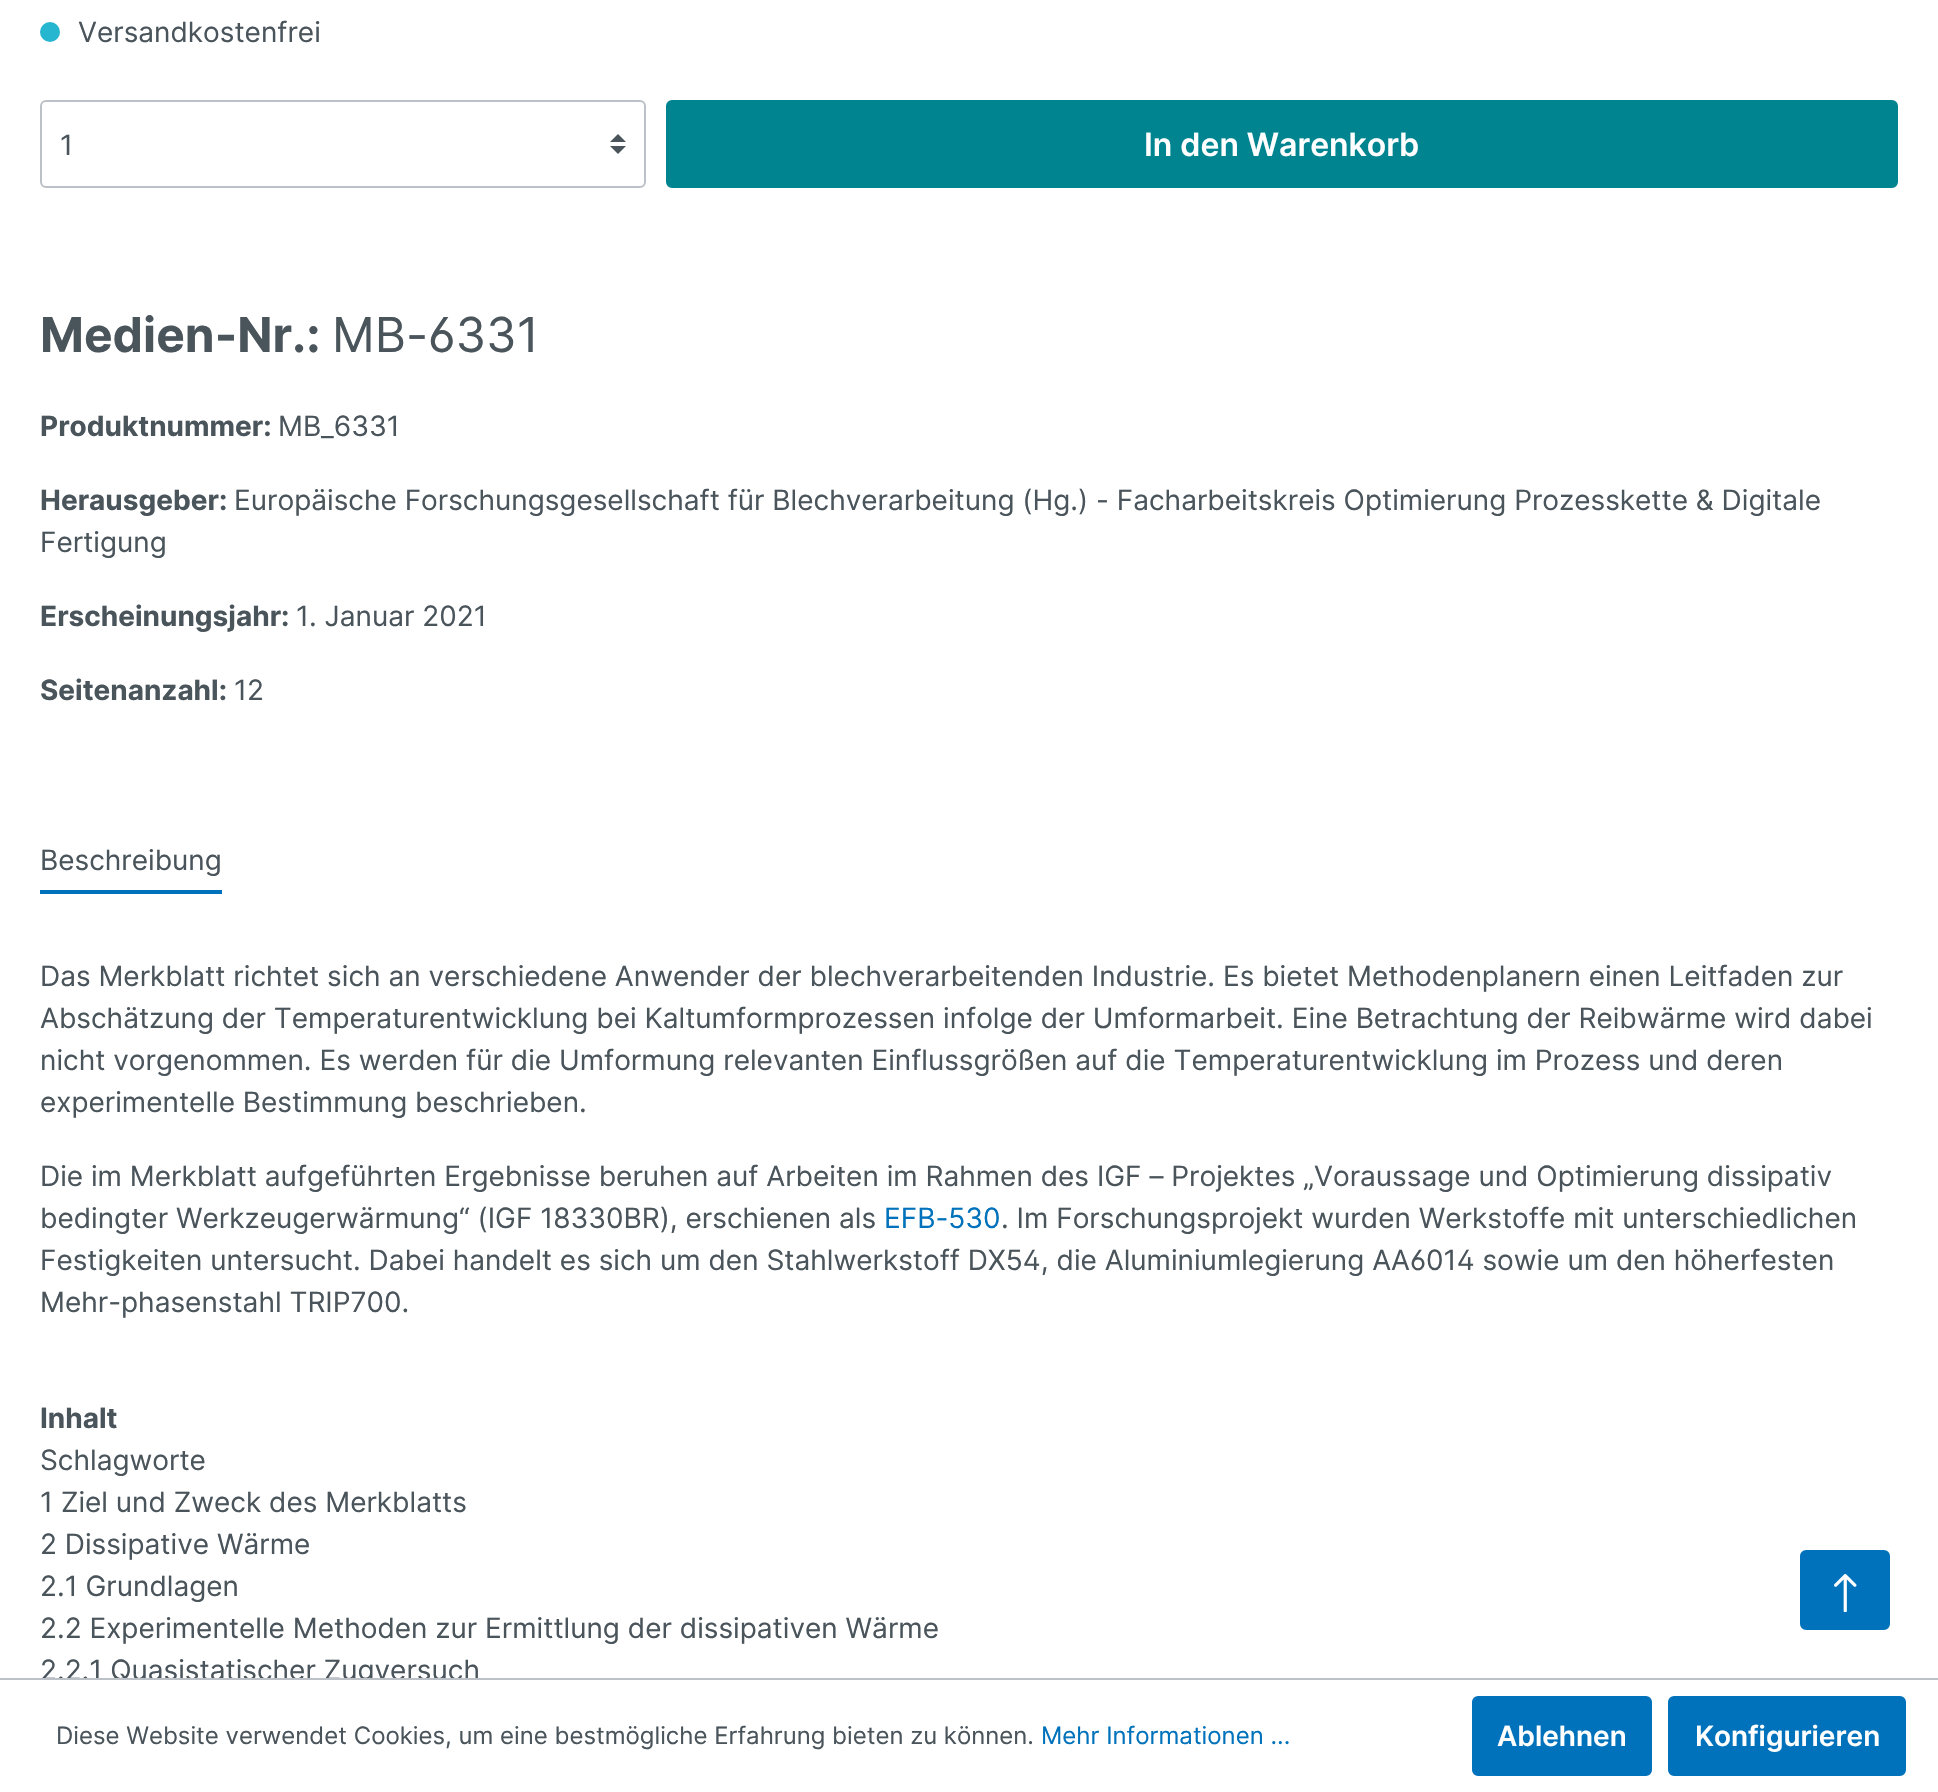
void draw(SkCanvas* canvas) {
	SkPaint fill;
	fill.setAntiAlias(true);
	auto makeFont = [&](const char* family, int weight, float size, bool italic = false) {
		SkFontStyle style(weight, SkFontStyle::kNormal_Width,
			italic ? SkFontStyle::kItalic_Slant : SkFontStyle::kUpright_Slant);
		SkFont result(fontMgr->matchFamilyStyle(family, style), size);
		result.setSubpixel(true);
		return result;
	};
	auto text = [&](const char* s, float x, float y, const SkFont& font) {
		canvas->drawString(s, x, y, font, fill);
	};
	auto box = [&](float l, float t, float r, float b) {
		canvas->drawRect(SkRect::MakeLTRB(l, t, r, b), fill);
	};
	auto picture = [&](const char* path, float l, float t, float r, float b) {
		auto image = SkImages::DeferredFromEncodedData(SkData::MakeFromFileName(path));
		canvas->drawImageRect(image, SkRect::MakeLTRB(l, t, r, b), SkSamplingOptions());
	};
	canvas->clear(0xFFFFFFFF);
	fill.setColor(0xFF26B6CF);
	canvas->drawCircle(50, 32, 10, fill);
	fill.setColor(0xFF4A545B);
	canvas->drawPath(SkPathBuilder().moveTo(618, 134).lineTo(610, 142).lineTo(626, 142).close().moveTo(618, 154).lineTo(610, 146).lineTo(626, 146).close().detach(), fill);
	fill.setStyle(SkPaint::kStroke_Style);
	fill.setStrokeWidth(2);
	fill.setColor(0xFFBCC1C7);
	canvas->drawRoundRect(SkRect::MakeLTRB(41, 101, 645, 187), 5, 5, fill);
	fill.setStyle(SkPaint::kFill_Style);
	fill.setColor(0xFF008490);
	canvas->drawRoundRect(SkRect::MakeLTRB(667, 101, 1897, 187), 5, 5, fill);
	fill.setStyle(SkPaint::kStroke_Style);
	canvas->drawRoundRect(SkRect::MakeLTRB(667, 101, 1897, 187), 5, 5, fill);
	fill.setStyle(SkPaint::kFill_Style);
	fill.setColor(0xFF0072BB);
	box(40, 890, 222, 894);
	canvas->drawRoundRect(SkRect::MakeLTRB(1801, 1551, 1889, 1629), 5, 5, fill);
	fill.setStyle(SkPaint::kStroke_Style);
	canvas->drawRoundRect(SkRect::MakeLTRB(1801, 1551, 1889, 1629), 5, 5, fill);
	picture("image0.png", 1834, 1574, 1857, 1612);
	fill.setStyle(SkPaint::kFill_Style);
	canvas->drawRoundRect(SkRect::MakeLTRB(1473, 1697, 1651, 1775), 5, 5, fill);
	fill.setStyle(SkPaint::kStroke_Style);
	canvas->drawRoundRect(SkRect::MakeLTRB(1473, 1697, 1651, 1775), 5, 5, fill);
	fill.setStyle(SkPaint::kFill_Style);
	canvas->drawRoundRect(SkRect::MakeLTRB(1669, 1697, 1905, 1775), 5, 5, fill);
	fill.setStyle(SkPaint::kStroke_Style);
	canvas->drawRoundRect(SkRect::MakeLTRB(1669, 1697, 1905, 1775), 5, 5, fill);
	auto font1 = makeFont("Inter", 400, 28);
	fill.setStyle(SkPaint::kFill_Style);
	fill.setColor(0xFF4A545B);
	text("Versandkostenfrei", 78, 42, font1);
	text("1", 60, 155, font1);
	auto font2 = makeFont("Inter", 600, 32);
	fill.setColor(0xFFFFFFFF);
	text("In den Warenkorb", 1144, 156, font2);
	auto font3 = makeFont("Inter", 700, 48);
	fill.setColor(0xFF4A545B);
	text("Medien-Nr.:", 40, 352, font3);
	auto font4 = makeFont("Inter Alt", 400, 48);
	text("MB-6331", 332, 352, font4);
	auto font5 = makeFont("Inter", 700, 28);
	text("Produktnummer:", 40, 436, font5);
	text("MB_6331", 278, 436, font1);
	text("Herausgeber:", 40, 510, font5);
	text("Europäische Forschungsgesellschaft für Blechverarbeitung (Hg.) - Facharbeitskreis Optimierung Prozesskette & Digitale", 234, 510, font1);
	text("Fertigung", 40, 552, font1);
	text("Erscheinungsjahr:", 40, 626, font5);
	text("1. Januar 2021", 296, 626, font1);
	text("Seitenanzahl:", 40, 700, font5);
	text("12", 234, 700, font1);
	text("Beschreibung", 40, 870, font1);
	text("Das Merkblatt richtet sich an verschiedene Anwender der blechverarbeitenden Industrie. Es bietet Methodenplanern einen Leitfaden zur", 40, 986, font1);
	text("Abschätzung der Temperaturentwicklung bei Kaltumformprozessen infolge der Umformarbeit. Eine Betrachtung der Reibwärme wird dabei", 40, 1028, font1);
	text("nicht vorgenommen. Es werden für die Umformung relevanten Einflussgrößen auf die Temperaturentwicklung im Prozess und deren", 40, 1070, font1);
	text("experimentelle Bestimmung beschrieben.", 40, 1112, font1);
	text("Die im Merkblatt aufgeführten Ergebnisse beruhen auf Arbeiten im Rahmen des IGF – Projektes „Voraussage und Optimierung dissipativ", 40, 1186, font1);
	text("bedingter Werkzeugerwärmung“ (IGF 18330BR), erschienen als", 40, 1228, font1);
	fill.setColor(0xFF0072BB);
	text("EFB-530", 884, 1228, font1);
	fill.setColor(0xFF4A545B);
	text(". Im Forschungsprojekt wurden Werkstoffe mit unterschiedlichen", 1001, 1228, font1);
	auto font6 = makeFont("Inter Alt", 400, 28);
	text("Festigkeiten untersucht. Dabei handelt es sich um den Stahlwerkstoff DX54, die Aluminiumlegierung AA6014 sowie um den höherfesten", 40, 1270, font6);
	text("Mehr-phasenstahl TRIP700.", 40, 1312, font1);
	text("Inhalt", 40, 1428, font5);
	text("Schlagworte", 40, 1470, font1);
	text("1 Ziel und Zweck des Merkblatts", 40, 1512, font1);
	text("2 Dissipative Wärme", 40, 1554, font1);
	text("2.1 Grundlagen", 40, 1596, font1);
	text("2.2 Experimentelle Methoden zur Ermittlung der dissipativen Wärme", 40, 1638, font1);
	text("2.2.1 Quasistatischer Zugversuch", 40, 1680, font1);
	fill.setColor(0xFFFFFFFF);
	box(60, 1680, 458, 1687);
	fill.setColor(0xFFBCC1C7);
	box(0, 1678, 1938, 1680);
	auto font7 = makeFont("Inter", 400, 24);
	fill.setColor(0xFF4A545B);
	text("Diese Website verwendet Cookies, um eine bestmögliche Erfahrung bieten zu können.", 56, 1744, font7);
	fill.setColor(0xFF0072BB);
	text("Mehr Informationen ...", 1041, 1744, font7);
	auto font8 = makeFont("Inter", 600, 28);
	fill.setColor(0xFFFFFFFF);
	text("Ablehnen", 1497, 1746, font8);
	text("Konfigurieren", 1695, 1746, font8);
}
